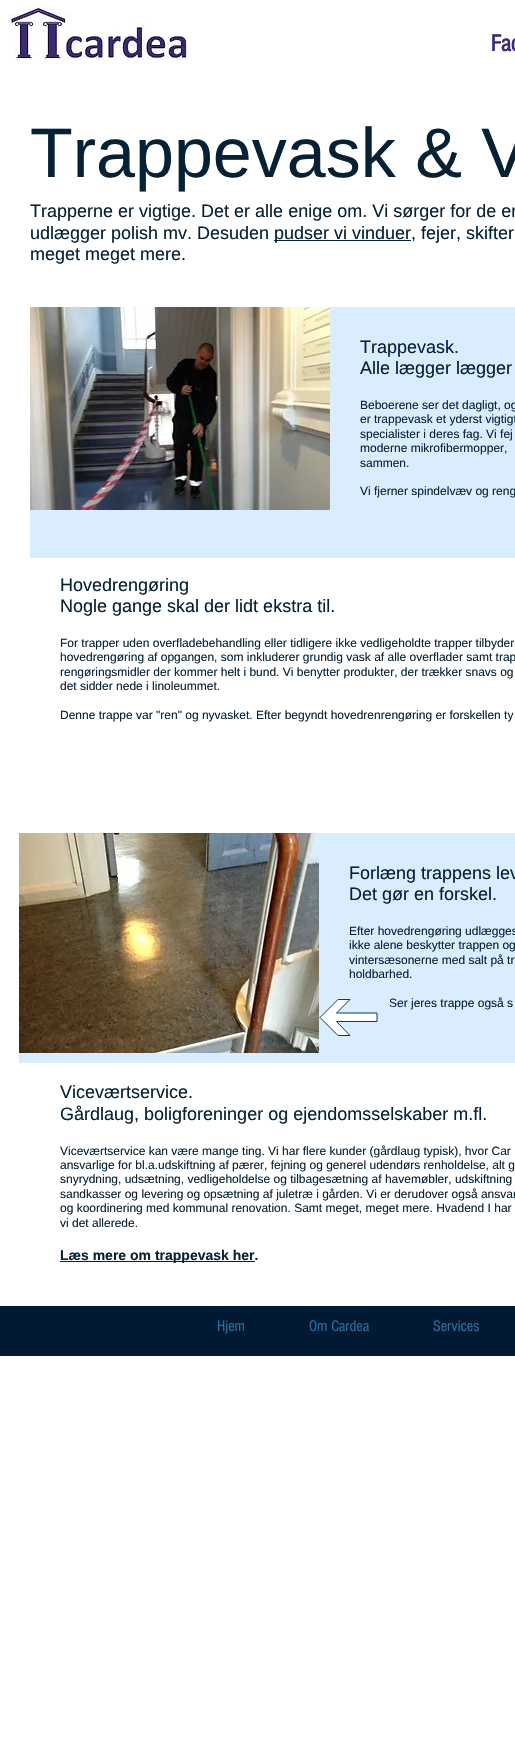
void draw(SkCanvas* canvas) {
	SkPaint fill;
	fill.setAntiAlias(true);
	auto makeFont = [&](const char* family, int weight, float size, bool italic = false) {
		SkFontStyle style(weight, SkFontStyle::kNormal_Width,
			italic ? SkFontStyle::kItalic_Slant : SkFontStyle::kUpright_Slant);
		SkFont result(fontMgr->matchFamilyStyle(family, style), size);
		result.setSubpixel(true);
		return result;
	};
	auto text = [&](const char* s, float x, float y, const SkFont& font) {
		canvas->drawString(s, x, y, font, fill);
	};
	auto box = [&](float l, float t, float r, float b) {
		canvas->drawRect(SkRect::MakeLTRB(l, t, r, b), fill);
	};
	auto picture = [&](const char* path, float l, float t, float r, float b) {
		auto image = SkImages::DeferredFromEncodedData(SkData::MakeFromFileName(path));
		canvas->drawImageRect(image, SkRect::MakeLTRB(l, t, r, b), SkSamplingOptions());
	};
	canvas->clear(0xFFFFFFFF);
	picture("image0.png", 8, 4, 190, 60);
	fill.setColor(0xFF062134);
	box(274, 240, 411, 241);
	fill.setColor(0xFFDAEDFF);
	box(30, 307, 515, 558);
	picture("image1.png", 30, 307, 330, 510);
	box(19, 833, 515, 1063);
	picture("image2.png", 19, 833, 319, 1053);
	fill.setColor(0xFFFFFFFF);
	canvas->drawPath(SkPathBuilder().moveTo(338, 999).lineTo(320, 1017).lineTo(338, 1035).lineTo(350, 1035).lineTo(336, 1022).lineTo(377, 1022).lineTo(377, 1013).lineTo(336, 1013).lineTo(350, 999).close().detach(), fill);
	fill.setStyle(SkPaint::kStroke_Style);
	fill.setStrokeWidth(1);
	fill.setColor(0xFF0C3C60);
	canvas->drawPath(SkPathBuilder().moveTo(338, 999.5f).lineTo(320, 1017.5f).lineTo(338, 1035.5f).lineTo(350, 1035.5f).lineTo(336.5f, 1021.5f).lineTo(377, 1021.5f).lineTo(377, 1013).lineTo(336.5f, 1013).lineTo(350, 999.5f).close().detach(), fill);
	fill.setStyle(SkPaint::kFill_Style);
	fill.setColor(0xFF062134);
	box(60, 1261, 255, 1262);
	fill.setColor(0xFF001A33);
	box(0, 1306, 515, 1356);
	auto font1 = makeFont("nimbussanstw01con", 700, 24);
	fill.setColor(0xFF3D2874);
	text("Fac", 491, 51, font1);
	auto font2 = makeFont("Liberation Sans", 400, 70);
	fill.setColor(0xFF062134);
	text("Trappevask & V", 30, 177, font2);
	auto font3 = makeFont("Liberation Sans", 400, 18);
	text("Trapperne er vigtige. Det er alle enige om. Vi sørger for de er", 30, 217, font3);
	text("udlægger polish mv. Desuden", 30, 239, font3);
	text("pudser vi vinduer, fejer, skifter", 274, 239, font3);
	text("meget meget mere.", 30, 260, font3);
	text("Trappevask.", 360, 353, font3);
	text("Alle lægger lægger", 360, 374, font3);
	auto font4 = makeFont("Liberation Sans", 400, 12);
	text("Beboerene ser det dagligt, og", 360, 409, font4);
	text("er trappevask et yderst vigtigt", 360, 423, font4);
	text("specialister i deres fag. Vi fej", 360, 438, font4);
	text("moderne mikrofibermopper,", 360, 452, font4);
	text("sammen.", 360, 467, font4);
	text("Vi fjerner spindelvæv og reng", 360, 495, font4);
	text("Hovedrengøring", 60, 591, font3);
	text("Nogle gange skal der lidt ekstra til.", 60, 612, font3);
	text("For trapper uden overfladebehandling eller tidligere ikke vedligeholdte trapper tilbyder", 60, 647, font4);
	text("hovedrengøring af opgangen, som inkluderer grundig vask af alle overflader samt trap", 60, 661, font4);
	text("rengøringsmidler der kommer helt i bund. Vi benytter produkter, der trækker snavs og", 60, 676, font4);
	text("det sidder nede i linoleummet.", 60, 690, font4);
	text("Denne trappe var \"ren\" og nyvasket. Efter begyndt hovedrenrengøring er forskellen ty", 60, 719, font4);
	text("Forlæng trappens lev", 349, 879, font3);
	text("Det gør en forskel.", 349, 900, font3);
	text("Efter hovedrengøring udlægges", 349, 935, font4);
	text("ikke alene beskytter trappen og", 349, 949, font4);
	text("vintersæsonerne med salt på tr", 349, 964, font4);
	text("holdbarhed.", 349, 978, font4);
	text("Ser jeres trappe også s", 389, 1007, font4);
	text("Viceværtservice.", 60, 1098, font3);
	text("Gårdlaug, boligforeninger og ejendomsselskaber m.fl.", 60, 1120, font3);
	text("Viceværtservice kan være mange ting. Vi har flere kunder (gårdlaug typisk), hvor Car", 60, 1155, font4);
	text("ansvarlige for bl.a.udskiftning af pærer, fejning og generel udendørs renholdelse, alt g", 60, 1169, font4);
	text("snyrydning, udsætning, vedligeholdelse og tilbagesætning af havemøbler, udskiftning", 60, 1183, font4);
	text("sandkasser og levering og opsætning af juletræ i gården. Vi er derudover også ansvar", 60, 1198, font4);
	text("og koordinering med kommunal renovation. Samt meget, meget mere. Hvadend I har", 60, 1212, font4);
	text("vi det allerede.", 60, 1227, font4);
	auto font5 = makeFont("Liberation Sans", 700, 14);
	text("Læs mere om trappevask her.", 60, 1260, font5);
	auto font6 = makeFont("nimbussanstw01con", 400, 16);
	fill.setColor(0xFF2B6CA3);
	text("Hjem", 217, 1331, font6);
	text("Om Cardea", 309, 1331, font6);
	text("Services", 433, 1331, font6);
}
